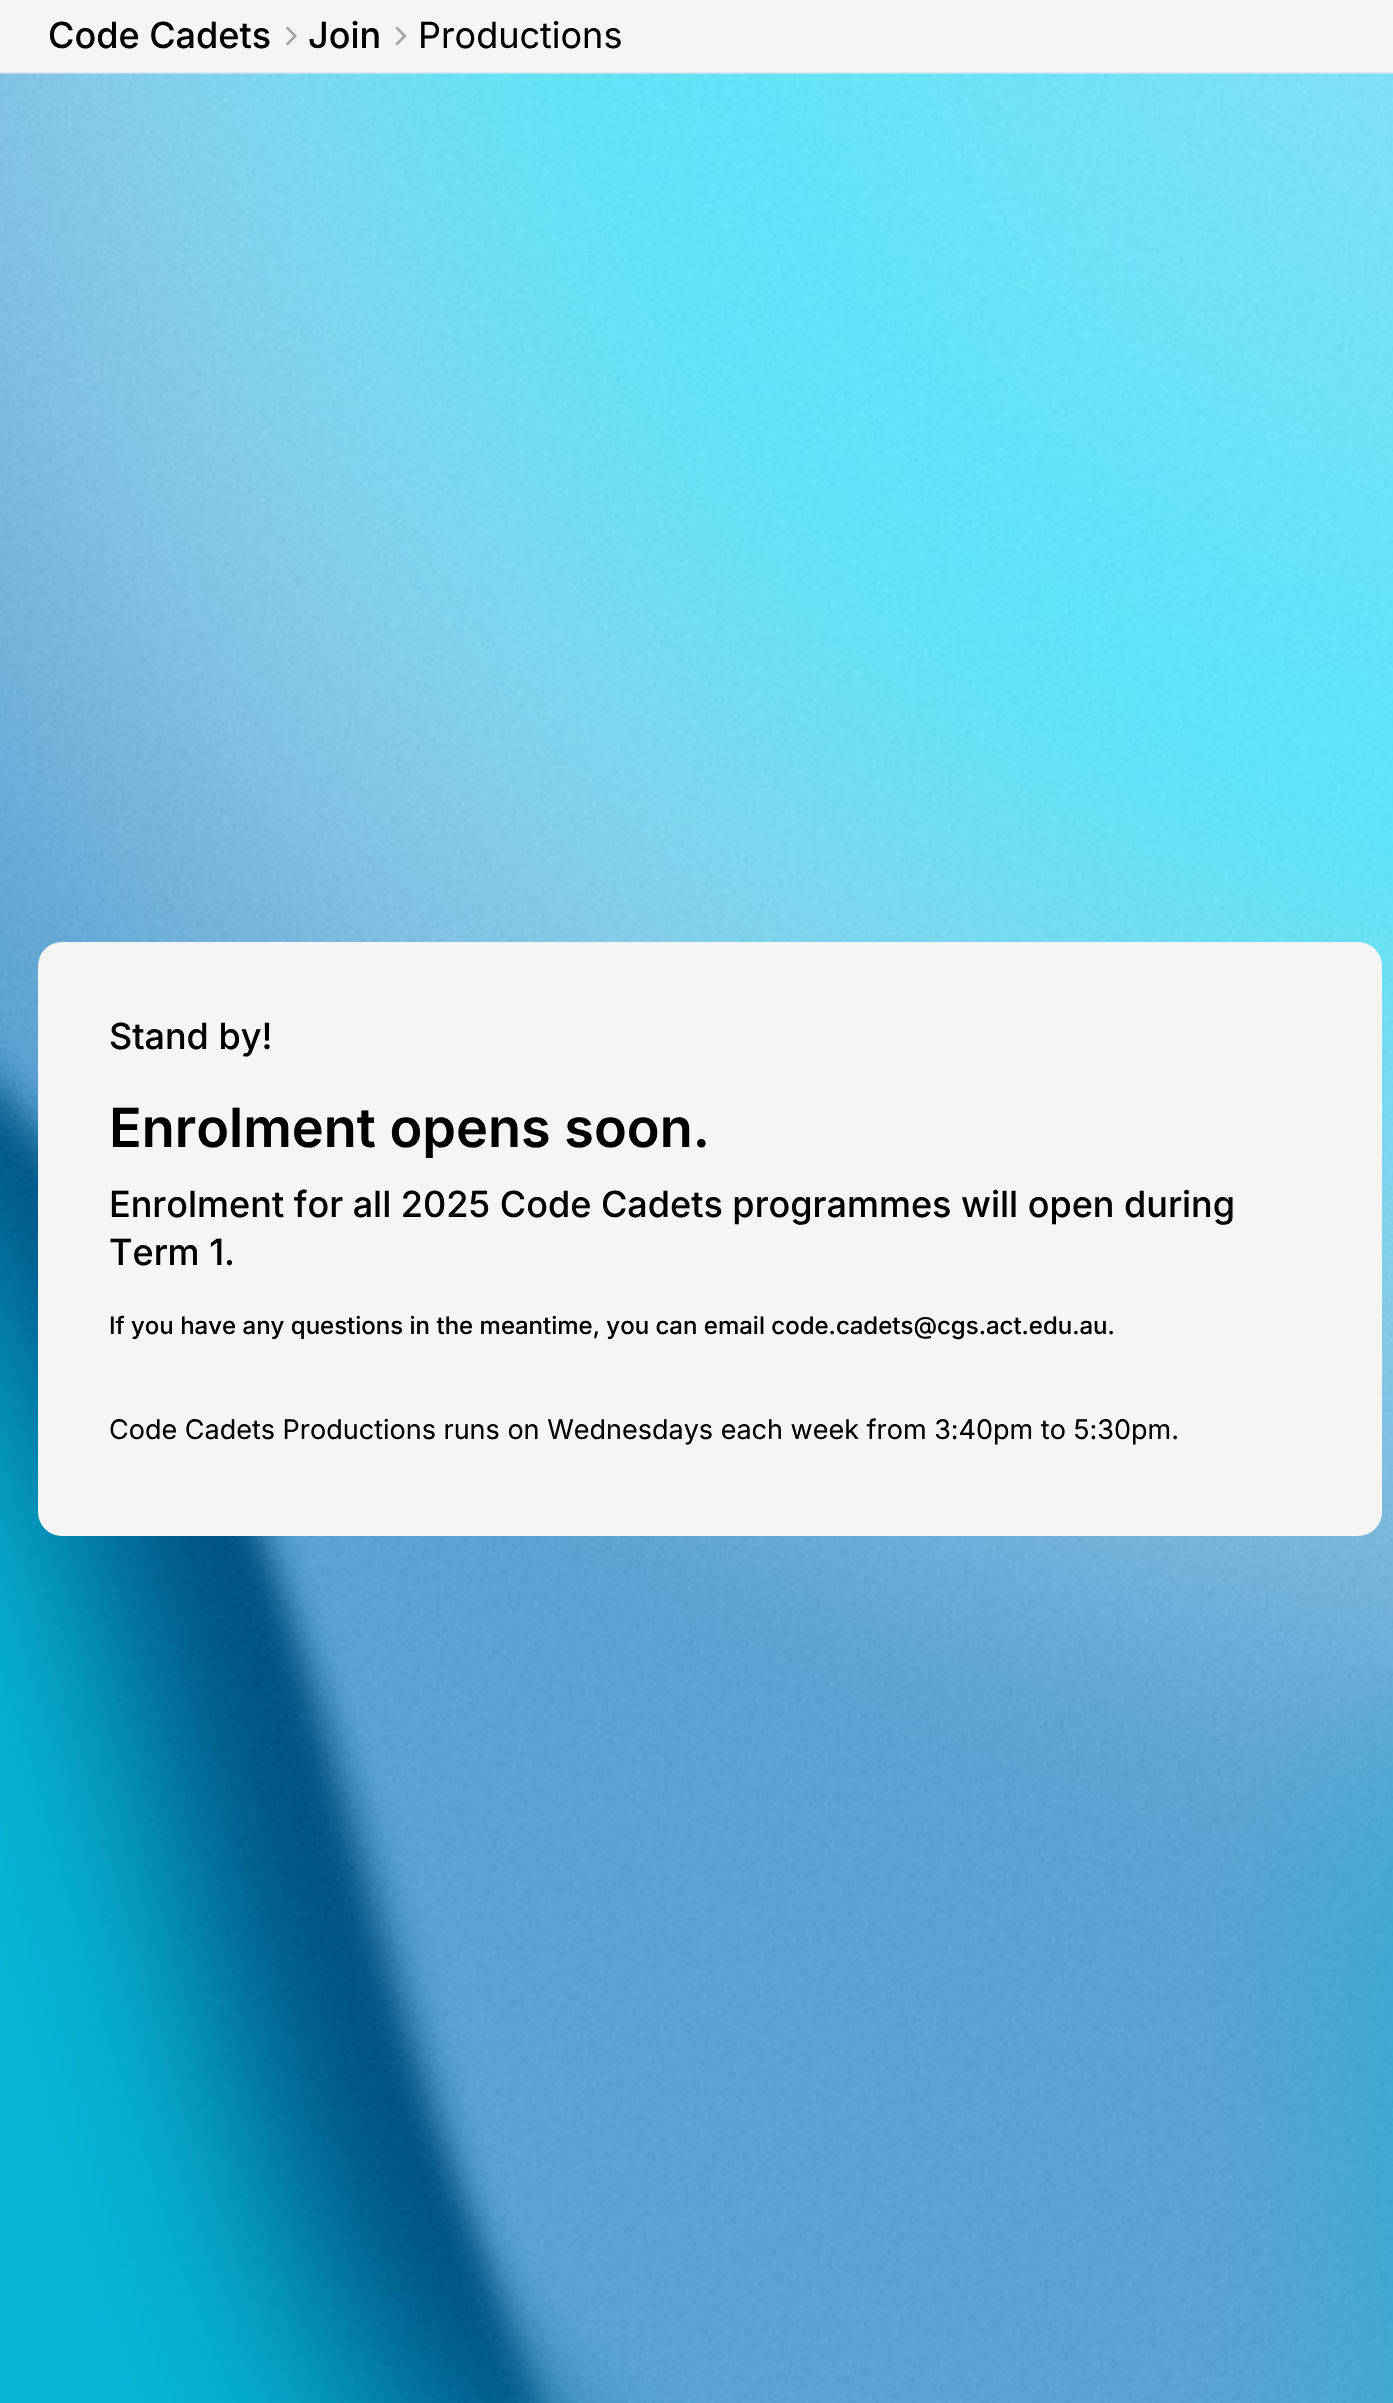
void draw(SkCanvas* canvas) {
	SkPaint fill;
	fill.setAntiAlias(true);
	auto makeFont = [&](const char* family, int weight, float size, bool italic = false) {
		SkFontStyle style(weight, SkFontStyle::kNormal_Width,
			italic ? SkFontStyle::kItalic_Slant : SkFontStyle::kUpright_Slant);
		SkFont result(fontMgr->matchFamilyStyle(family, style), size);
		result.setSubpixel(true);
		return result;
	};
	auto text = [&](const char* s, float x, float y, const SkFont& font) {
		canvas->drawString(s, x, y, font, fill);
	};
	auto box = [&](float l, float t, float r, float b) {
		canvas->drawRect(SkRect::MakeLTRB(l, t, r, b), fill);
	};
	auto roundBox = [&](float l, float t, float r, float b, float radius) {
		canvas->drawRoundRect(SkRect::MakeLTRB(l, t, r, b), radius, radius, fill);
	};
	auto picture = [&](const char* path, float l, float t, float r, float b) {
		auto image = SkImages::DeferredFromEncodedData(SkData::MakeFromFileName(path));
		canvas->drawImageRect(image, SkRect::MakeLTRB(l, t, r, b), SkSamplingOptions());
	};
	canvas->clear(0xFFF5F5F5);
	fill.setColor(0xFFE5E7EB);
	box(0, 72, 1393, 74);
	picture("image0.png", 286, 26, 297, 46);
	picture("image1.png", 395, 26, 406, 46);
	picture("image2.png", 0, 73, 1393, 2403);
	fill.setColor(0xFFF5F5F4);
	roundBox(38, 942, 1382, 1536, 24);
	auto font1 = makeFont("Inter", 500, 36);
	fill.setColor(0xFF000000);
	text("Code Cadets", 48, 48, font1);
	text("Join", 308, 48, font1);
	auto font2 = makeFont("Inter", 400, 36);
	text("Productions", 418, 48, font2);
	text("Stand by!", 109, 1049, font1);
	auto font3 = makeFont("Inter", 600, 54);
	text("Enrolment opens soon.", 109, 1147, font3);
	text("Enrolment for all 2025 Code Cadets programmes will open during", 109, 1217, font1);
	text("Term 1.", 109, 1265, font1);
	auto font4 = makeFont("Inter", 500, 24);
	text("If you have any questions in the meantime, you can email code.cadets@cgs.act.edu.au.", 109, 1334, font4);
	auto font5 = makeFont("Inter", 400, 27);
	text("Code Cadets Productions runs on Wednesdays each week from 3:40pm to 5:30pm.", 109, 1439, font5);
}
